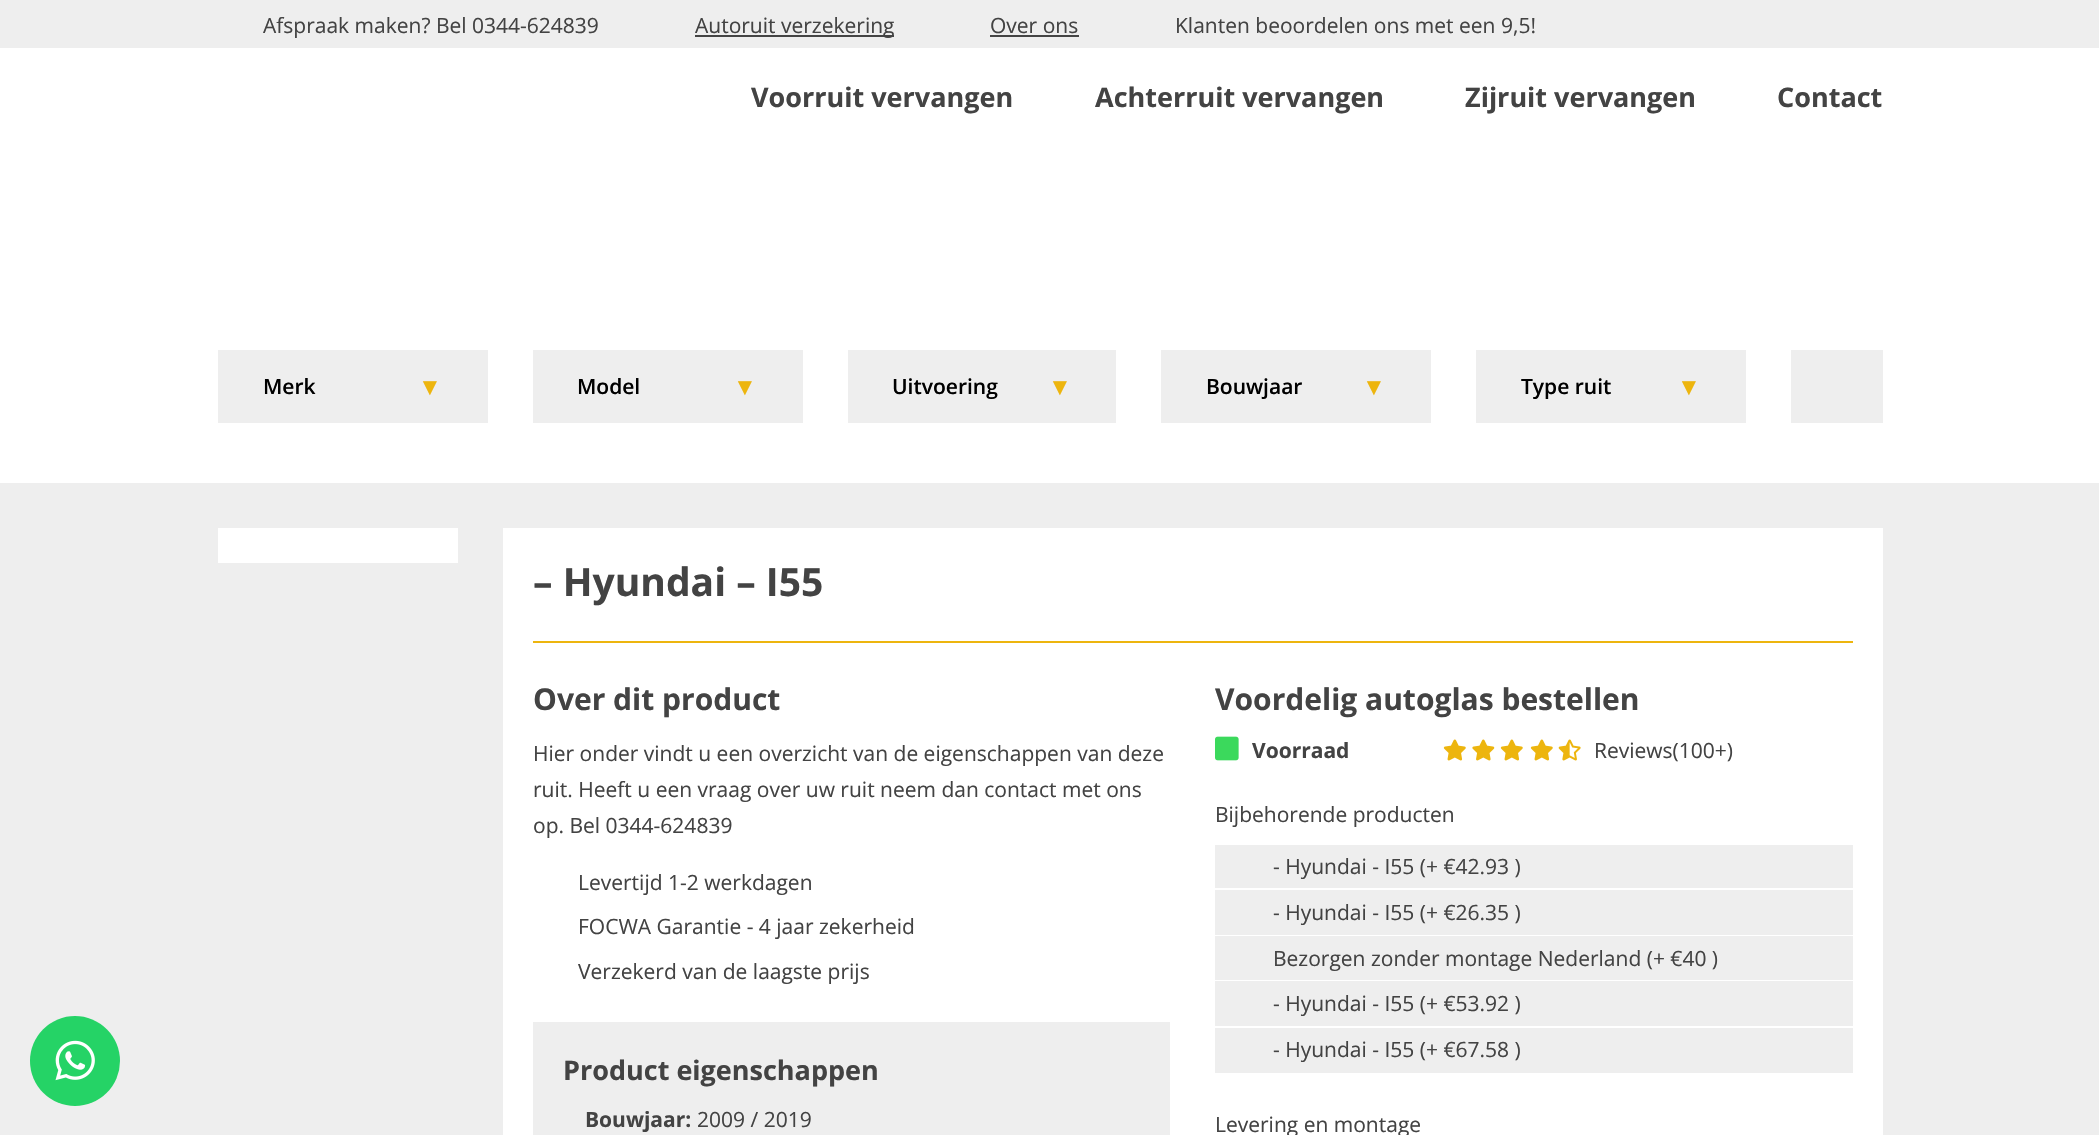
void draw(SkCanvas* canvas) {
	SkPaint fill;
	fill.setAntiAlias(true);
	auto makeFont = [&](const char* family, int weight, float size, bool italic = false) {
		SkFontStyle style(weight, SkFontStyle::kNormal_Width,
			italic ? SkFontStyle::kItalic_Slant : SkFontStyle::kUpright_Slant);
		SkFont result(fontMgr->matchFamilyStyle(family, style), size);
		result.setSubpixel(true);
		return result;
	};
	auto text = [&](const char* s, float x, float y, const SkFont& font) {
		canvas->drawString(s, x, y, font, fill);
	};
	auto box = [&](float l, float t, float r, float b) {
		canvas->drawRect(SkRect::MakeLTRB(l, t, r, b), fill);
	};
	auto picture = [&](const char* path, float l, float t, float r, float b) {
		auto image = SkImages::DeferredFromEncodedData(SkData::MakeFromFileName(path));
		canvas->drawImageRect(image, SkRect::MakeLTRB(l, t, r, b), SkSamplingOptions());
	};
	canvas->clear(0xFFFFFFFF);
	fill.setColor(0xFFEEEEEE);
	box(0, 0, 2099, 48);
	fill.setColor(0xFF444444);
	box(695, 35, 894, 37);
	box(990, 35, 1079, 37);
	fill.setColor(0xFFEEEEEE);
	box(0, 483, 2099, 1135);
	fill.setColor(0xFF25D366);
	canvas->drawCircle(75, 1061, 45, fill);
	picture("image0.png", 55, 1040, 95, 1081);
	fill.setColor(0xFFEEEEEE);
	box(218, 350, 488, 423);
	box(533, 350, 803, 423);
	box(848, 350, 1116, 423);
	box(1161, 350, 1431, 423);
	box(1476, 350, 1746, 423);
	box(1791, 350, 1883, 423);
	fill.setColor(0xFFFFFFFF);
	box(218, 528, 458, 563);
	box(503, 528, 1883, 1135);
	fill.setColor(0xFFEDB50E);
	box(533, 641, 1853, 643);
	fill.setColor(0xFFEEEEEE);
	box(533, 1022, 1170, 1135);
	picture("image1.png", 1215, 736, 1239, 761);
	picture("image2.png", 1443, 739, 1466, 761);
	picture("image3.png", 1472, 739, 1495, 761);
	picture("image2.png", 1500, 739, 1523, 761);
	picture("image2.png", 1530, 739, 1553, 761);
	picture("image4.png", 1558, 739, 1581, 761);
	box(1215, 845, 1853, 888);
	box(1215, 890, 1853, 935);
	box(1215, 936, 1853, 980);
	box(1215, 981, 1853, 1026);
	box(1215, 1028, 1853, 1073);
	auto font1 = makeFont("Open Sans", 400, 21);
	fill.setColor(0xFF434343);
	text("Afspraak maken? Bel", 263, 33, font1);
	text("0344-624839", 472, 33, font1);
	text("Autoruit verzekering", 695, 33, font1);
	text("Over ons", 990, 33, font1);
	text("Klanten beoordelen ons met een 9,5!", 1175, 33, font1);
	auto font2 = makeFont("Open Sans", 700, 27);
	text("Voorruit vervangen", 751, 107, font2);
	text("Achterruit vervangen", 1095, 107, font2);
	text("Zijruit vervangen", 1465, 107, font2);
	text("Contact", 1777, 107, font2);
	auto font3 = makeFont("Open Sans", 600, 21);
	fill.setColor(0xFF000000);
	text("Merk", 263, 394, font3);
	auto font4 = makeFont("Liberation Sans", 400, 24);
	fill.setColor(0xFFEDB50E);
	text("▼", 418, 395, font4);
	fill.setColor(0xFF000000);
	text("Model", 577, 394, font3);
	fill.setColor(0xFFEDB50E);
	text("▼", 733, 395, font4);
	fill.setColor(0xFF000000);
	text("Uitvoering", 892, 394, font3);
	fill.setColor(0xFFEDB50E);
	text("▼", 1048, 395, font4);
	fill.setColor(0xFF000000);
	text("Bouwjaar", 1206, 394, font3);
	fill.setColor(0xFFEDB50E);
	text("▼", 1362, 395, font4);
	fill.setColor(0xFF000000);
	text("Type ruit", 1521, 394, font3);
	fill.setColor(0xFFEDB50E);
	text("▼", 1677, 395, font4);
	auto font5 = makeFont("Open Sans", 700, 39);
	fill.setColor(0xFF434343);
	text("– Hyundai – I55", 533, 596, font5);
	auto font6 = makeFont("Open Sans", 700, 30);
	text("Over dit product", 533, 710, font6);
	text("Hier onder vindt u een overzicht van de eigenschappen van deze", 533, 761, font1);
	text("ruit. Heeft u een vraag over uw ruit neem dan contact met ons", 533, 797, font1);
	text("op. Bel 0344-624839", 533, 833, font1);
	text("Levertijd 1-2 werkdagen", 578, 890, font1);
	text("FOCWA Garantie - 4 jaar zekerheid", 578, 934, font1);
	text("Verzekerd van de laagste prijs", 578, 979, font1);
	text("Product eigenschappen", 563, 1080, font2);
	auto font7 = makeFont("Open Sans", 700, 21);
	text("Bouwjaar:", 585, 1127, font7);
	text("2009 / 2019", 697, 1127, font1);
	text("Voordelig autoglas bestellen", 1215, 710, font6);
	text("Voorraad", 1252, 758, font7);
	text("Reviews(100+)", 1594, 758, font1);
	text("Bijbehorende producten", 1215, 822, font1);
	text("- Hyundai - I55 (+ €42.93 )", 1273, 874, font1);
	text("- Hyundai - I55 (+ €26.35 )", 1273, 920, font1);
	text("Bezorgen zonder montage Nederland (+ €40 )", 1273, 966, font1);
	text("- Hyundai - I55 (+ €53.92 )", 1273, 1011, font1);
	text("- Hyundai - I55 (+ €67.58 )", 1273, 1057, font1);
	text("Levering en montage", 1215, 1132, font1);
}
